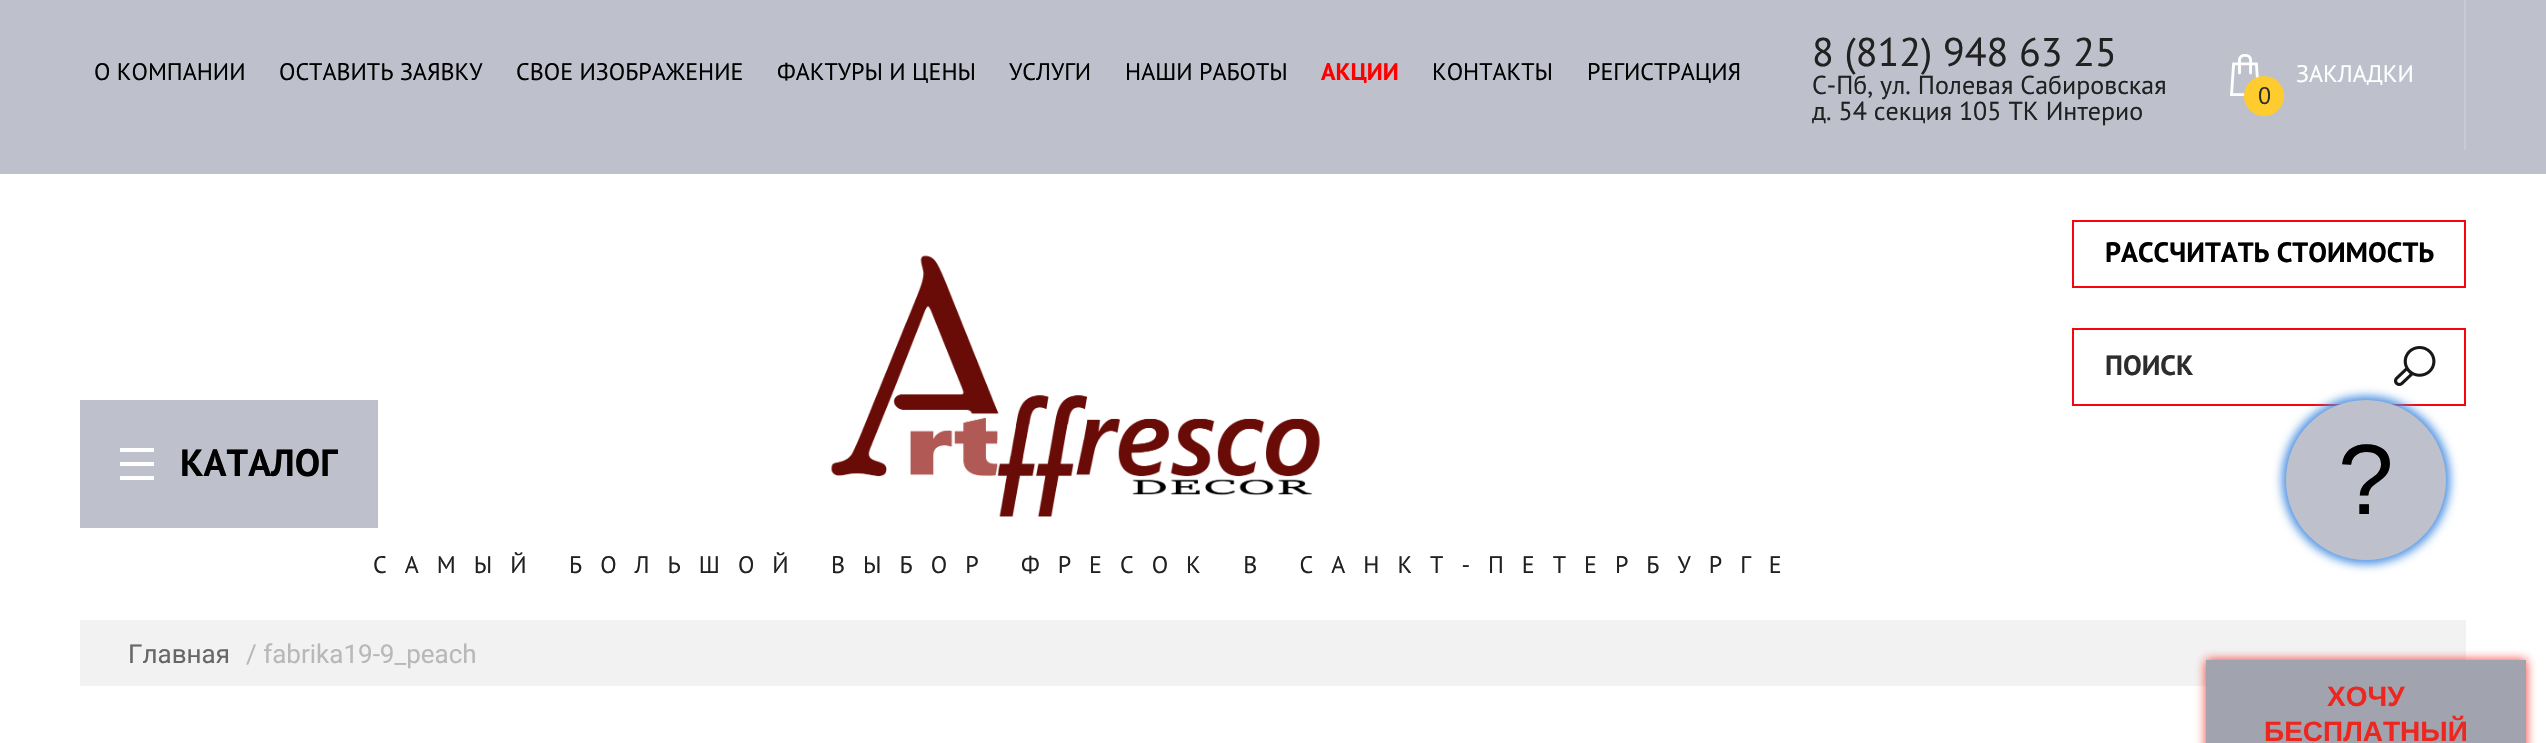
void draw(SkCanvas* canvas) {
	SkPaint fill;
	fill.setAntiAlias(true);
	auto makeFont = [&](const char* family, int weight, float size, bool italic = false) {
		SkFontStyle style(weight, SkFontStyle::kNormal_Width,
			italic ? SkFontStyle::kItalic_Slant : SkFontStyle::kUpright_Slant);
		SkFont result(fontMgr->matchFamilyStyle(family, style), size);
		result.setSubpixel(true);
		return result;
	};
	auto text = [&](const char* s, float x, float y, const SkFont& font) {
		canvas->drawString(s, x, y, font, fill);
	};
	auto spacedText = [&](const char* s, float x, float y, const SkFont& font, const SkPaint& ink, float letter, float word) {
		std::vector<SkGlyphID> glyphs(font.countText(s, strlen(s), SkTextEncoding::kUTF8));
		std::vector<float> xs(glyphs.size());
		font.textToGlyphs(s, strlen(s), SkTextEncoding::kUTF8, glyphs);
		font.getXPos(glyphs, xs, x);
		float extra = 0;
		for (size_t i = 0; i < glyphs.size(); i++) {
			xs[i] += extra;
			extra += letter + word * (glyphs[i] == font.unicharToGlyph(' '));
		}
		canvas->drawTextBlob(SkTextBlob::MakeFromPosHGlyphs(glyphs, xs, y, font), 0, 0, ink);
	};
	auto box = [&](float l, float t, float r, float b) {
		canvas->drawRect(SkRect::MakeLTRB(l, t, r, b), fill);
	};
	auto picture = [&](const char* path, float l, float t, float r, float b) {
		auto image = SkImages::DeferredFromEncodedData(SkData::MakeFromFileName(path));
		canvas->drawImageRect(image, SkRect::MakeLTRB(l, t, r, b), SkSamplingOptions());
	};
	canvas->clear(0xFFFFFFFF);
	fill.setColor(0xFFBEC1CC);
	box(0, 0, 2546, 174);
	picture("image0.png", 2230, 54, 2259, 96);
	fill.setColor(0xFFC8CAD4);
	box(2464, 0, 2466, 150);
	fill.setColor(0xFFFFCC2F);
	canvas->drawCircle(2264, 96, 20, fill);
	fill.setStyle(SkPaint::kStroke_Style);
	fill.setStrokeWidth(2);
	fill.setColor(0xFFF6050D);
	canvas->drawRect(SkRect::MakeLTRB(2073, 221, 2465, 287), fill);
	picture("image1.png", 2394, 346, 2436, 386);
	canvas->drawRect(SkRect::MakeLTRB(2073, 329, 2465, 405), fill);
	picture("image2.png", 831, 255, 1320, 517);
	fill.setStyle(SkPaint::kFill_Style);
	fill.setColor(0xFFF2F2F2);
	box(80, 620, 2466, 686);
	fill.setColor(0xD9F81107);
	fill.setMaskFilter(SkMaskFilter::MakeBlur(kNormal_SkBlurStyle, 5));
	canvas->drawRect(SkRect::MakeLTRB(2206, 660, 2526, 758), fill);
	fill.setMaskFilter(nullptr);
	fill.setColor(0xFFA1A3AE);
	box(2206, 660, 2526, 743);
	fill.setColor(0xFFBEC1CC);
	box(80, 400, 378, 528);
	fill.setColor(0xFFFFFFFF);
	canvas->drawPath(SkPathBuilder().moveTo(120, 480).lineTo(120, 476).lineTo(154, 476).lineTo(154, 480).close().moveTo(120, 462).lineTo(154, 462).lineTo(154, 466).lineTo(120, 466).close().moveTo(120, 448).lineTo(154, 448).lineTo(154, 452).lineTo(120, 452).close().detach(), fill);
	fill.setColor(0xFF4A90E2);
	fill.setMaskFilter(SkMaskFilter::MakeBlur(kNormal_SkBlurStyle, 5));
	canvas->drawRoundRect(SkRect::MakeLTRB(2282, 396, 2450, 564), 84, 84, fill);
	fill.setMaskFilter(nullptr);
	fill.setColor(0xFFBEC1CC);
	canvas->drawCircle(2366, 480, 80, fill);
	auto font1 = makeFont("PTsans", 400, 24);
	fill.setColor(0xFF000000);
	text("О КОМПАНИИ", 94, 80, font1);
	text("ОСТАВИТЬ ЗАЯВКУ", 279, 80, font1);
	text("СВОЕ ИЗОБРАЖЕНИЕ", 516, 80, font1);
	text("ФАКТУРЫ И ЦЕНЫ", 777, 80, font1);
	text("УСЛУГИ", 1009, 80, font1);
	text("НАШИ РАБОТЫ", 1125, 80, font1);
	auto font2 = makeFont("PTsans", 700, 24);
	fill.setColor(0xFFFF0000);
	text("АКЦИИ", 1321, 80, font2);
	fill.setColor(0xFF000000);
	text("КОНТАКТЫ", 1432, 80, font1);
	text("РЕГИСТРАЦИЯ", 1587, 80, font1);
	auto font3 = makeFont("PTsans", 400, 40);
	fill.setColor(0xFF212121);
	text("8 (812) 948 63 25", 1812, 66, font3);
	auto font4 = makeFont("PTsans", 400, 26);
	text("С-Пб, ул. Полевая Сабировская", 1812, 94, font4);
	text("д. 54 секция 105 ТК Интерио", 1812, 120, font4);
	fill.setColor(0xFFFFFFFF);
	text("ЗАКЛАДКИ", 2296, 82, font1);
	fill.setColor(0xFF2D2D2D);
	text("0", 2258, 104, font1);
	auto font5 = makeFont("PTsans", 700, 28);
	fill.setColor(0xFF000000);
	text("РАССЧИТАТЬ СТОИМОСТЬ", 2105, 262, font5);
	fill.setColor(0xFF2D2D2D);
	text("ПОИСК", 2105, 375, font5);
	fill.setColor(0xFF212121);
	spacedText("САМЫЙ БОЛЬШОЙ ВЫБОР ФРЕСОК В САНКТ-ПЕТЕРБУРГЕ", 373, 573, font1, fill, 18, 0);
	auto font6 = makeFont("Roboto", 400, 26);
	fill.setColor(0xFF676767);
	text("Главная", 128, 663, font6);
	fill.setColor(0xFFB8B8B8);
	text("/ fabrika19-9_peach", 246, 663, font6);
	auto font7 = makeFont("Liberation Sans", 700, 28);
	fill.setColor(0xFFEB2720);
	text("ХОЧУ", 2327, 706, font7);
	text("БЕСПЛАТНЫЙ", 2264, 741, font7);
	auto font8 = makeFont("PTsans", 700, 38);
	fill.setColor(0xFF000000);
	text("КАТАЛОГ", 180, 476, font8);
	auto font9 = makeFont("Liberation Sans", 400, 100);
	text("?", 2338, 514, font9);
}
